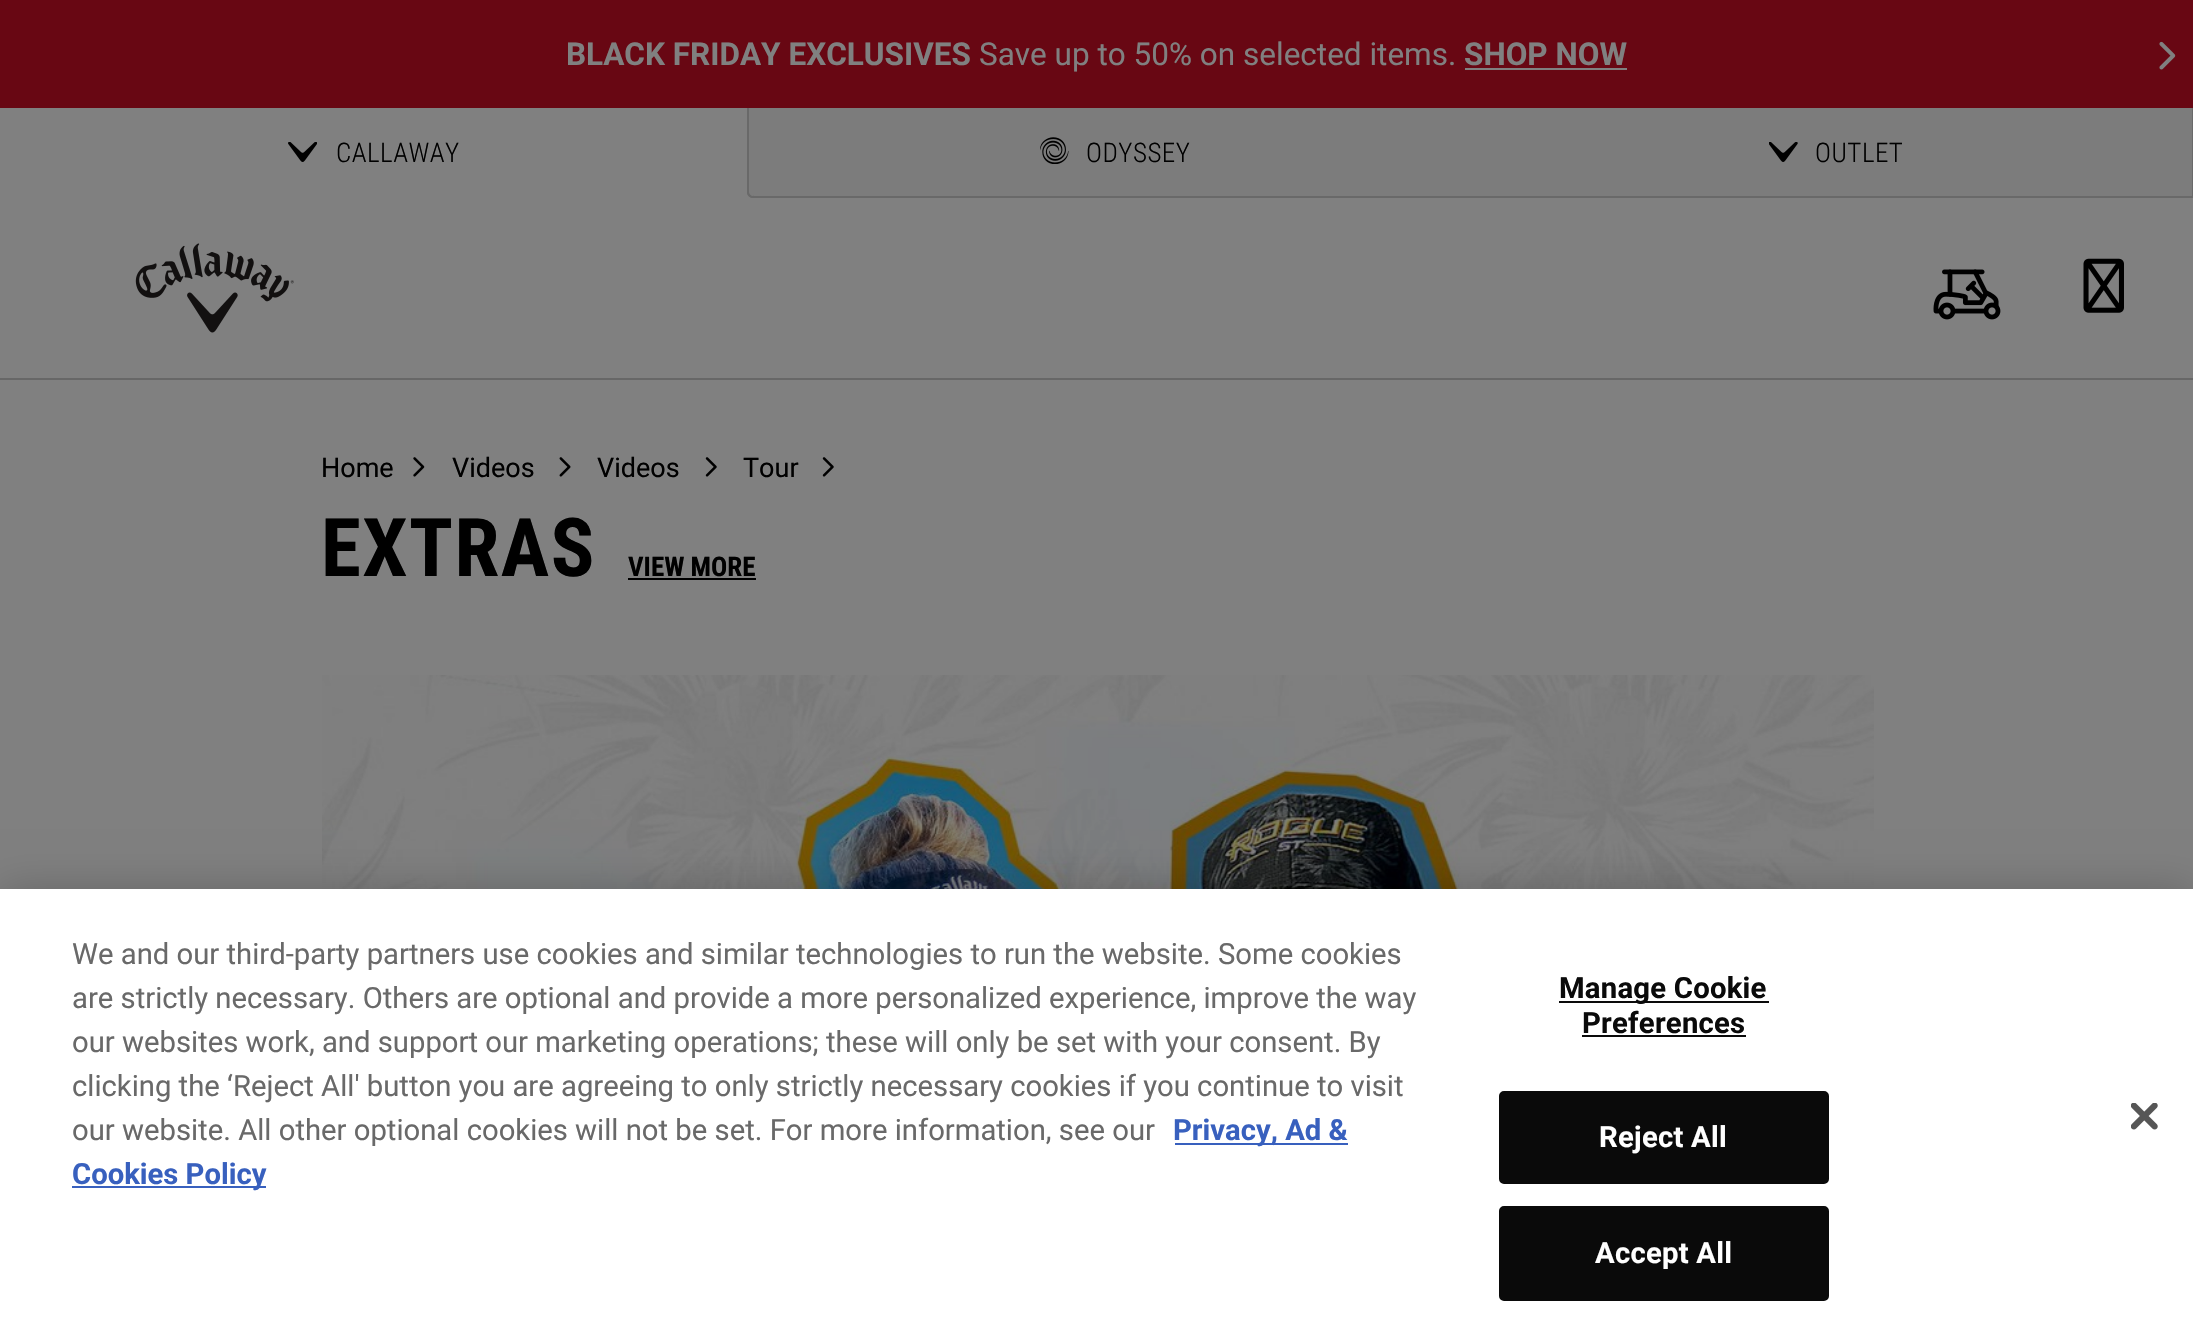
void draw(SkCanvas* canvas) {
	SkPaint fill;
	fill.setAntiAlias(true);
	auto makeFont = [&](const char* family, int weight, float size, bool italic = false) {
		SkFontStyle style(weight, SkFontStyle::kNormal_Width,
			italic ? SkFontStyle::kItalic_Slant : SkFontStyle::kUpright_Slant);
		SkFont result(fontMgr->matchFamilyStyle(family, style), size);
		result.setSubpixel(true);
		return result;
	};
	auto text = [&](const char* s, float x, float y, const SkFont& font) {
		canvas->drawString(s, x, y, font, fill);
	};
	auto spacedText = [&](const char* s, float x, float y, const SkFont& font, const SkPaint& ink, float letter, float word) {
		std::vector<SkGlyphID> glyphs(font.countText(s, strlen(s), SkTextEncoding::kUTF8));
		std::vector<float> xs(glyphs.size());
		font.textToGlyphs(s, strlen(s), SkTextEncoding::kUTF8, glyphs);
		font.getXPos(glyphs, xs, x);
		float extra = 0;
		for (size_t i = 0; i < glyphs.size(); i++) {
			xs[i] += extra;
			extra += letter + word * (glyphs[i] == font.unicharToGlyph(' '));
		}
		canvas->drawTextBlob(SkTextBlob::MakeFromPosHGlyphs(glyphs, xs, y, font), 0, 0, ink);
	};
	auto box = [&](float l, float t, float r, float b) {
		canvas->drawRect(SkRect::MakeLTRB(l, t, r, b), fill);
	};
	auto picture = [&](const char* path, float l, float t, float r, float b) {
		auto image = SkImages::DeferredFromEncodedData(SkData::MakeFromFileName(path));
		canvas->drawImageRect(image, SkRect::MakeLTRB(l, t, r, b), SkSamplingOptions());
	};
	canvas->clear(0xFF808080);
	fill.setColor(0xFF680713);
	box(0, 0, 2193, 108);
	fill.setColor(0xFF808080);
	box(1465, 68, 1627, 70);
	picture("image0.png", 2159, 41, 2176, 70);
	fill.setColor(0xFF676767);
	box(0, 378, 2193, 380);
	fill.setColor(0xFF7C7C7C);
	box(749, 108, 2192, 196);
	fill.setColor(0xFF696969);
	box(2192, 108, 2193, 198);
	box(747, 192, 749, 198);
	picture("image1.png", 288, 142, 317, 162);
	box(749, 196, 2192, 198);
	fill.setColor(0xFF808080);
	canvas->drawPath(SkPathBuilder().moveTo(747, 192).lineTo(747, 198).lineTo(753, 198).cubicTo(749.5f, 198, 747, 195.5f, 747, 192).close().detach(), fill);
	canvas->save();
	canvas->clipRect(SkRect::MakeLTRB(747, 108, 754, 198));
	fill.setColor(0xFF696969);
	canvas->drawPath(SkPathBuilder().moveTo(757, 108).lineTo(757, 192).cubicTo(757, 194, 755, 196, 753, 196).cubicTo(751, 196, 749, 194, 749, 192).lineTo(749, 108).lineTo(747, 108).lineTo(747, 192).cubicTo(747, 195, 750, 198, 753, 198).cubicTo(756, 198, 759, 195, 759, 192).lineTo(759, 108).close().detach(), fill);
	canvas->restore();
	picture("image2.png", 1040, 137, 1069, 164);
	picture("image3.png", 1769, 142, 1798, 162);
	picture("image4.png", 135, 243, 294, 333);
	picture("image5.png", 1933, 269, 2001, 320);
	picture("image6.png", 2083, 258, 2124, 313);
	picture("image7.png", 413, 457, 425, 477);
	picture("image8.png", 559, 457, 571, 477);
	picture("image9.png", 705, 457, 717, 477);
	picture("image9.png", 822, 457, 834, 477);
	fill.setColor(0xFF000000);
	box(628, 578, 756, 580);
	picture("image10.png", 321, 675, 1874, 889);
	fill.setColor(0x33000000);
	fill.setMaskFilter(SkMaskFilter::MakeBlur(kNormal_SkBlurStyle, 20));
	canvas->drawRect(SkRect::MakeLTRB(0, 889, 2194, 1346), fill);
	fill.setMaskFilter(nullptr);
	fill.setColor(0xFFFFFFFF);
	box(0, 889, 2193, 1344);
	fill.setColor(0xFF3860BE);
	box(1175, 1143, 1348, 1145);
	box(72, 1186, 266, 1188);
	fill.setColor(0xFF0A0A0A);
	box(1559, 1001, 1769, 1003);
	box(1582, 1035, 1746, 1037);
	canvas->drawRoundRect(SkRect::MakeLTRB(1500, 1092, 1828, 1183), 4, 4, fill);
	fill.setStyle(SkPaint::kStroke_Style);
	fill.setStrokeWidth(2);
	canvas->drawRoundRect(SkRect::MakeLTRB(1500, 1092, 1828, 1183), 4, 4, fill);
	fill.setStyle(SkPaint::kFill_Style);
	canvas->drawRoundRect(SkRect::MakeLTRB(1500, 1207, 1828, 1300), 4, 4, fill);
	fill.setStyle(SkPaint::kStroke_Style);
	canvas->drawRoundRect(SkRect::MakeLTRB(1500, 1207, 1828, 1300), 4, 4, fill);
	picture("image11.png", 2131, 1103, 2158, 1130);
	auto font1 = makeFont("Roboto", 700, 31.5f);
	fill.setStyle(SkPaint::kFill_Style);
	fill.setColor(0xFF808080);
	text("BLACK FRIDAY EXCLUSIVES", 566, 65, font1);
	auto font2 = makeFont("Roboto", 400, 31.5f);
	text("Save up to 50% on selected items.", 979, 65, font2);
	text("SHOP NOW", 1464, 65, font1);
	auto font3 = makeFont("Roboto Condensed", 300, 27);
	fill.setColor(0xFF000000);
	spacedText("CALLAWAY", 336, 162, font3, fill, 0.5f, 0);
	spacedText("ODYSSEY", 1086, 162, font3, fill, 0.5f, 0);
	spacedText("OUTLET", 1815, 162, font3, fill, 0.5f, 0);
	auto font4 = makeFont("Roboto", 400, 27);
	text("Home", 321, 477, font4);
	text("Videos", 452, 477, font4);
	text("Videos", 597, 477, font4);
	text("Tour", 743, 477, font4);
	auto font5 = makeFont("Roboto Condensed", 700, 81);
	spacedText("EXTRAS", 321, 576, font5, fill, 1.5f, 0);
	auto font6 = makeFont("Roboto Condensed", 700, 27);
	text("VIEW MORE", 628, 576, font6);
	auto font7 = makeFont("Roboto", 400, 29.25f);
	fill.setColor(0xFF696969);
	text("We and our third-party partners use cookies and similar technologies to run the website. Some cookies", 72, 964, font7);
	text("are strictly necessary. Others are optional and provide a more personalized experience, improve the way", 72, 1008, font7);
	text("our websites work, and support our marketing operations; these will only be set with your consent. By", 72, 1052, font7);
	text("clicking the ‘Reject All' button you are agreeing to only strictly necessary cookies if you continue to visit", 72, 1096, font7);
	text("our website. All other optional cookies will not be set. For more information, see our", 72, 1140, font7);
	auto font8 = makeFont("Roboto", 700, 29.25f);
	fill.setColor(0xFF3860BE);
	text("Privacy, Ad &", 1173, 1140, font8);
	text("Cookies Policy", 72, 1184, font8);
	fill.setColor(0xFF0A0A0A);
	spacedText("Manage Cookie", 1559, 998, font8, fill, 0.25f, 0);
	spacedText("Preferences", 1582, 1033, font8, fill, 0.25f, 0);
	fill.setColor(0xFFFFFFFF);
	spacedText("Reject All", 1599, 1147, font8, fill, 0.25f, 0);
	spacedText("Accept All", 1595, 1263, font8, fill, 0.25f, 0);
}
